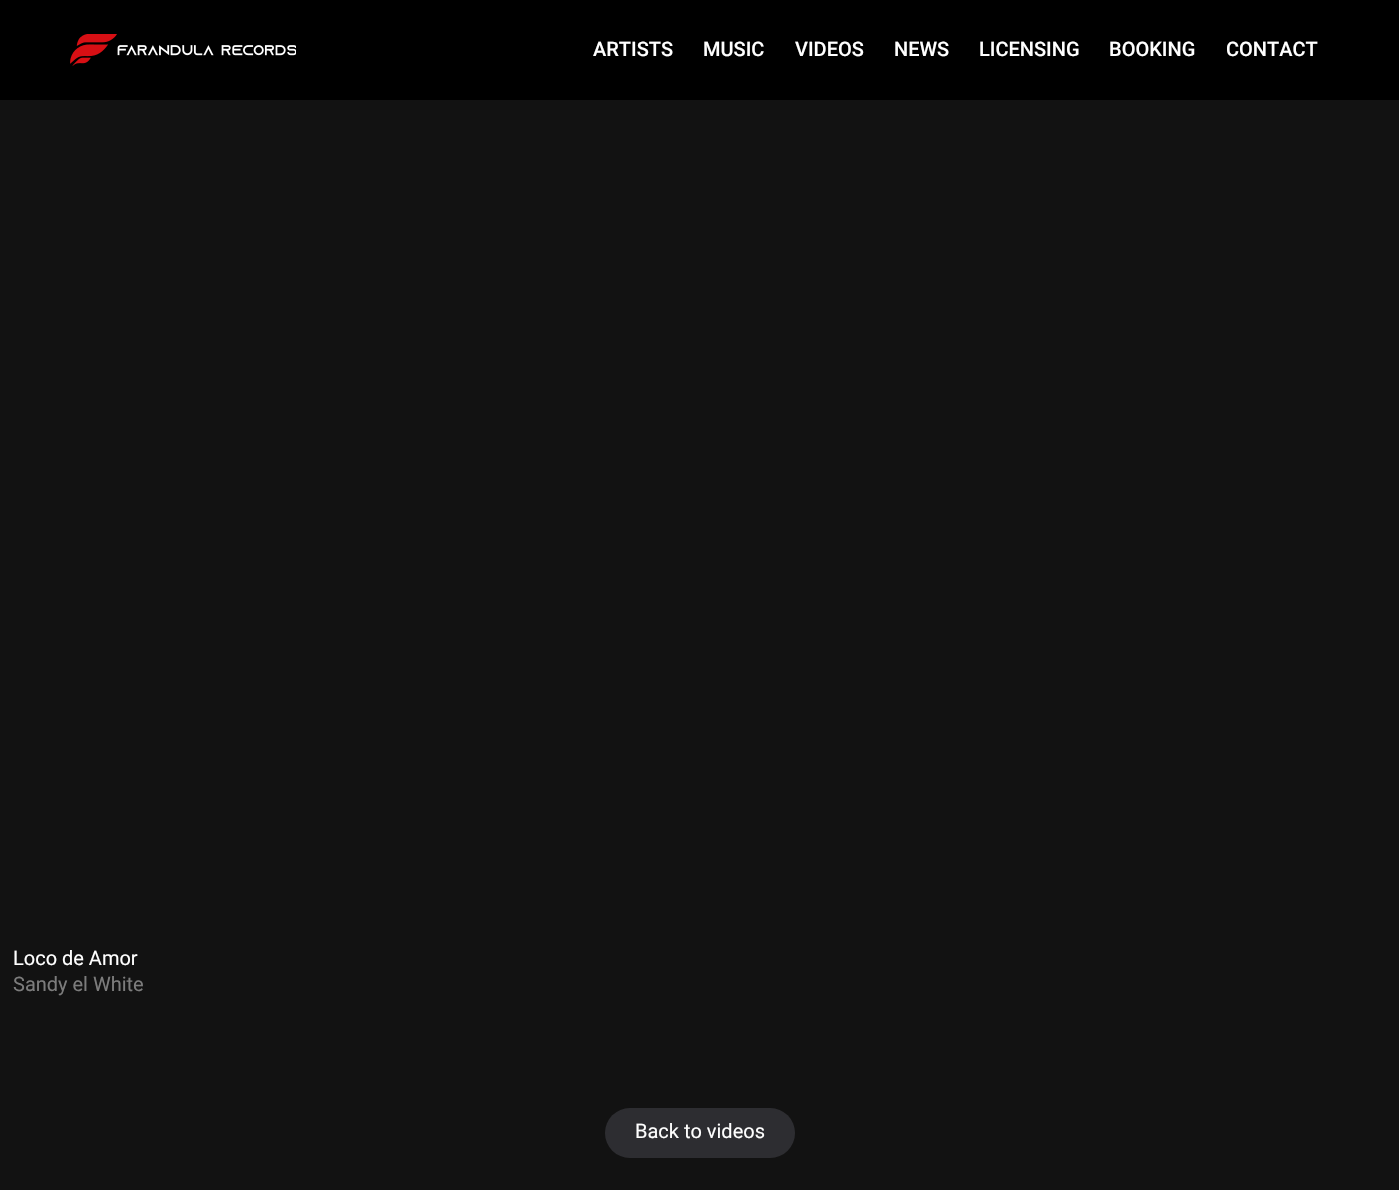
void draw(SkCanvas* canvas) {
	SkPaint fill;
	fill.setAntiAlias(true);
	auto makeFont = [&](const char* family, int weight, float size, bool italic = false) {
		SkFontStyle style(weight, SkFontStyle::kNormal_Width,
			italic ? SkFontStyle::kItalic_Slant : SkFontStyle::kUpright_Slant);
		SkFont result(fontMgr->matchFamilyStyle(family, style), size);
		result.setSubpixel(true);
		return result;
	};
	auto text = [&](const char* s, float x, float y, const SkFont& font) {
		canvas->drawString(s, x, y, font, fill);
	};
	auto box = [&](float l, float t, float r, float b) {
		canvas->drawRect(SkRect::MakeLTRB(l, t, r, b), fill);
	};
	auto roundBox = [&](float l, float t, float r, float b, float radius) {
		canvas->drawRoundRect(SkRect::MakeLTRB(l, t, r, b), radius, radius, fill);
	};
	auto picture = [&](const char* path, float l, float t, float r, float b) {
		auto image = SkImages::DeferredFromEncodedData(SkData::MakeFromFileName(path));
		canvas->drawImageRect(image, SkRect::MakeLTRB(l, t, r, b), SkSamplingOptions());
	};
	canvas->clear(0xFF121212);
	fill.setColor(0xFF000000);
	box(0, 0, 1399, 100);
	picture("image0.png", 70, 34, 296, 66);
	fill.setColor(0xFF2D2D31);
	roundBox(605, 1108, 795, 1158, 25);
	auto font1 = makeFont("Roboto", 500, 20);
	fill.setColor(0xFFFFFFFF);
	text("ARTISTS", 593, 56, font1);
	text("MUSIC", 703, 56, font1);
	text("VIDEOS", 795, 56, font1);
	text("NEWS", 894, 56, font1);
	text("LICENSING", 979, 56, font1);
	text("BOOKING", 1109, 56, font1);
	text("CONTACT", 1226, 56, font1);
	auto font2 = makeFont("Roboto", 400, 20);
	text("Loco de Amor", 13, 965, font2);
	fill.setColor(0xFF7C7C7C);
	text("Sandy el White", 13, 991, font2);
	fill.setColor(0xFFFFFFFF);
	text("Back to videos", 635, 1138, font2);
}
